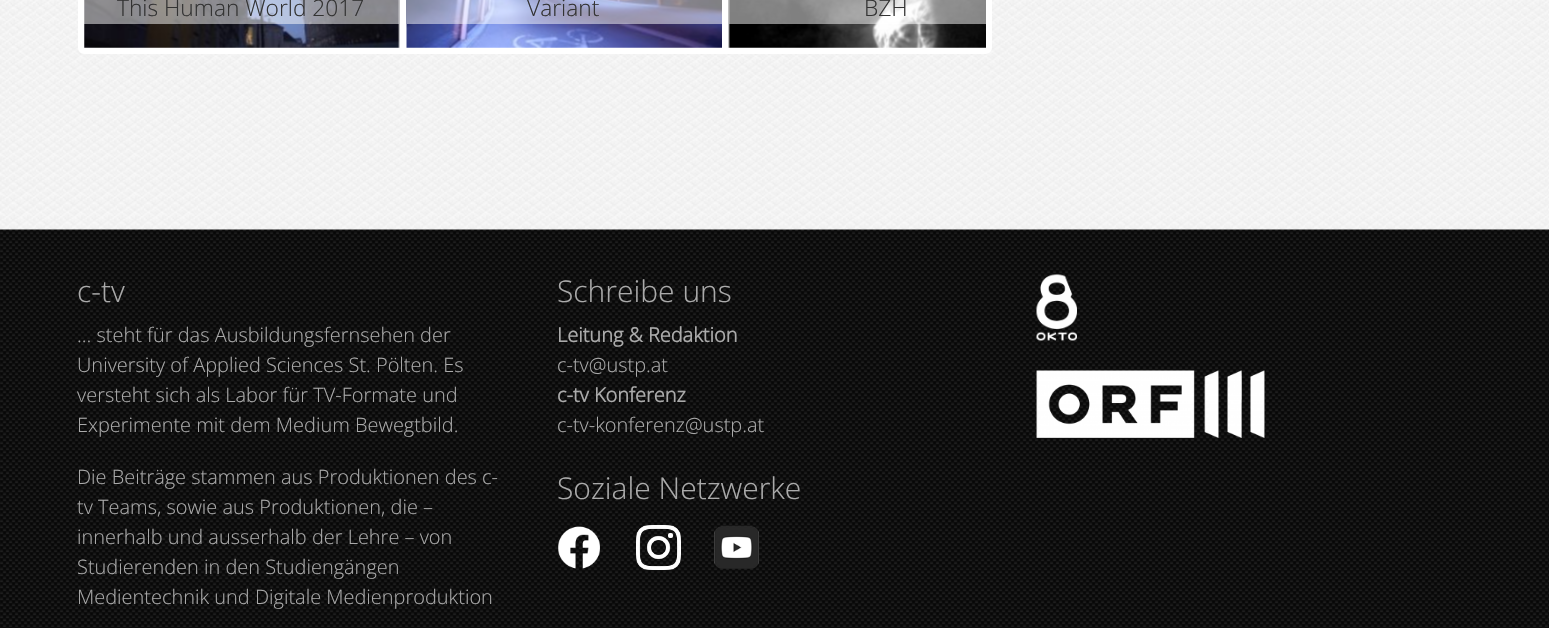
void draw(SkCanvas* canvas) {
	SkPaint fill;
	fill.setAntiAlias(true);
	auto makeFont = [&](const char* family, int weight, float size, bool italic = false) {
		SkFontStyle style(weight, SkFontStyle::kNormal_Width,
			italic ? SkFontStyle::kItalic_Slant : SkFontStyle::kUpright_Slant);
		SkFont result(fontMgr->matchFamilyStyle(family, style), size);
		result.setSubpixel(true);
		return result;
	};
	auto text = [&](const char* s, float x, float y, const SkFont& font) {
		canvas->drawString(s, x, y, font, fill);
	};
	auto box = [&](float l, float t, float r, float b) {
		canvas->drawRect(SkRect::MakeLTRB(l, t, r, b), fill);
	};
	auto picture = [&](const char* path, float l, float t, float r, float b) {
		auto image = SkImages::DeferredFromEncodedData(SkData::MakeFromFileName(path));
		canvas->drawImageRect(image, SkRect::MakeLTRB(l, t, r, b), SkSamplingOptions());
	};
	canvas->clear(0xFFFFFFFF);
	picture("image0.png", 0, 0, 1549, 230);
	fill.setColor(0xFFFFFFFF);
	canvas->drawRoundRect(SkRect::MakeLTRB(81, -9, 989, 51), 3, 3, fill);
	fill.setStyle(SkPaint::kStroke_Style);
	fill.setStrokeWidth(6);
	canvas->drawRoundRect(SkRect::MakeLTRB(81, -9, 989, 51), 3, 3, fill);
	picture("image1.png", 84, 0, 400, 48);
	fill.setStyle(SkPaint::kFill_Style);
	fill.setColor(0x80FFFFFF);
	box(84, 0, 399, 24);
	picture("image2.png", 406, 0, 722, 48);
	box(407, 0, 722, 24);
	picture("image3.png", 728, 0, 986, 48);
	box(729, 0, 986, 24);
	picture("image4.png", 0, 229, 1549, 628);
	picture("image5.png", 558, 526, 600, 569);
	picture("image6.png", 636, 525, 681, 570);
	picture("image7.png", 714, 525, 759, 569);
	picture("image8.png", 1036, 274, 1077, 341);
	picture("image9.png", 1036, 370, 1265, 438);
	auto font1 = makeFont("Open Sans", 300, 22.75f);
	fill.setColor(0xFF333333);
	text("This Human World 2017", 117, 16, font1);
	text("Variant", 527, 16, font1);
	text("BZH", 864, 16, font1);
	auto font2 = makeFont("Open Sans", 300, 30);
	fill.setColor(0xFFAAAAAA);
	text("c-tv", 77, 302, font2);
	auto font3 = makeFont("Open Sans", 300, 19.95f);
	text("… steht für das Ausbildungsfernsehen der", 77, 342, font3);
	text("University of Applied Sciences St. Pölten. Es", 77, 372, font3);
	text("versteht sich als Labor für TV-Formate und", 77, 402, font3);
	text("Experimente mit dem Medium Bewegtbild.", 77, 432, font3);
	text("Die Beiträge stammen aus Produktionen des c-", 77, 484, font3);
	text("tv Teams, sowie aus Produktionen, die –", 77, 514, font3);
	text("innerhalb und ausserhalb der Lehre – von", 77, 544, font3);
	text("Studierenden in den Studiengängen", 77, 574, font3);
	text("Medientechnik und Digitale Medienproduktion", 77, 604, font3);
	text("Schreibe uns", 557, 302, font2);
	auto font4 = makeFont("Open Sans", 700, 19.95f);
	text("Leitung & Redaktion", 557, 342, font4);
	text("c-tv@ustp.at", 557, 372, font3);
	text("c-tv Konferenz", 557, 402, font4);
	text("c-tv-konferenz@ustp.at", 557, 432, font3);
	text("Soziale Netzwerke", 557, 499, font2);
}
